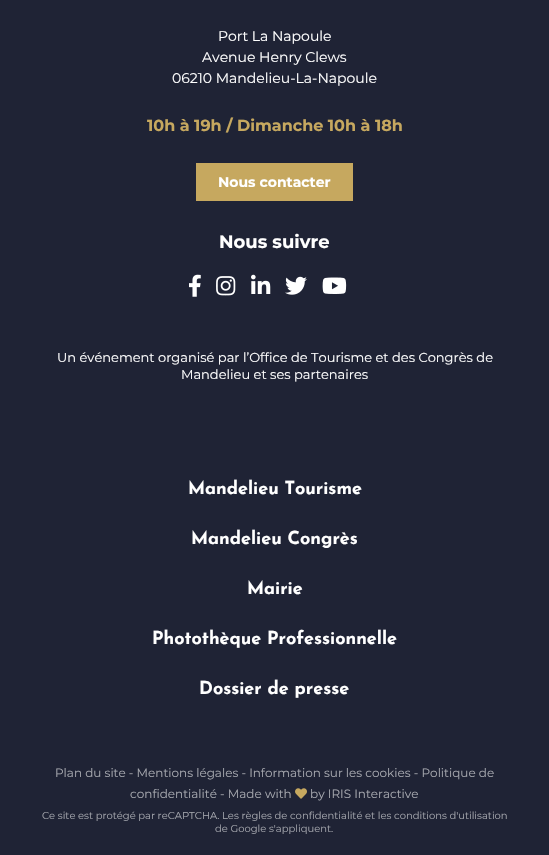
void draw(SkCanvas* canvas) {
	SkPaint fill;
	fill.setAntiAlias(true);
	auto makeFont = [&](const char* family, int weight, float size, bool italic = false) {
		SkFontStyle style(weight, SkFontStyle::kNormal_Width,
			italic ? SkFontStyle::kItalic_Slant : SkFontStyle::kUpright_Slant);
		SkFont result(fontMgr->matchFamilyStyle(family, style), size);
		result.setSubpixel(true);
		return result;
	};
	auto text = [&](const char* s, float x, float y, const SkFont& font) {
		canvas->drawString(s, x, y, font, fill);
	};
	auto box = [&](float l, float t, float r, float b) {
		canvas->drawRect(SkRect::MakeLTRB(l, t, r, b), fill);
	};
	auto picture = [&](const char* path, float l, float t, float r, float b) {
		auto image = SkImages::DeferredFromEncodedData(SkData::MakeFromFileName(path));
		canvas->drawImageRect(image, SkRect::MakeLTRB(l, t, r, b), SkSamplingOptions());
	};
	canvas->clear(0xFF1F2335);
	fill.setColor(0xFFC6A85F);
	box(196, 163, 353, 201);
	picture("image0.png", 189, 274, 201, 297);
	picture("image1.png", 216, 276, 236, 296);
	picture("image2.png", 251, 274, 271, 294);
	picture("image3.png", 285, 276, 307, 295);
	picture("image4.png", 322, 277, 347, 294);
	picture("image5.png", 295, 788, 307, 799);
	auto font1 = makeFont("Montserrat", 400, 14);
	fill.setColor(0xFFFFFFFF);
	text("Port La Napoule", 218, 41, font1);
	text("Avenue Henry Clews", 202, 62, font1);
	text("06210 Mandelieu-La-Napoule", 172, 83, font1);
	auto font2 = makeFont("Montserrat", 700, 16);
	fill.setColor(0xFFC6A85F);
	text("10h à 19h / Dimanche 10h à 18h", 147, 131, font2);
	auto font3 = makeFont("Montserrat", 700, 14);
	fill.setColor(0xFFFFFFFF);
	text("Nous contacter", 218, 187, font3);
	auto font4 = makeFont("Montserrat", 700, 18);
	text("Nous suivre", 219, 248, font4);
	auto font5 = makeFont("Montserrat", 400, 13);
	text("Un événement organisé par l’Office de Tourisme et des Congrès de", 57, 362, font5);
	text("Mandelieu et ses partenaires", 181, 379, font5);
	auto font6 = makeFont("Josefin Sans", 700, 18);
	text("Mandelieu Tourisme", 188, 494, font6);
	text("Mandelieu Congrès", 191, 544, font6);
	text("Mairie", 247, 594, font6);
	text("Photothèque Professionnelle", 152, 644, font6);
	text("Dossier de presse", 199, 694, font6);
	auto font7 = makeFont("Montserrat", 400, 12);
	fill.setColor(0xFFA5A7AE);
	text("Plan du site - Mentions légales - Information sur les cookies - Politique de", 55, 777, font7);
	text("confidentialité - Made with", 130, 798, font7);
	text("by IRIS Interactive", 310, 798, font7);
	auto font8 = makeFont("Montserrat", 400, 10);
	text("Ce site est protégé par reCAPTCHA. Les règles de confidentialité et les conditions d'utilisation", 42, 819, font8);
	text("de Google s'appliquent.", 215, 832, font8);
}
